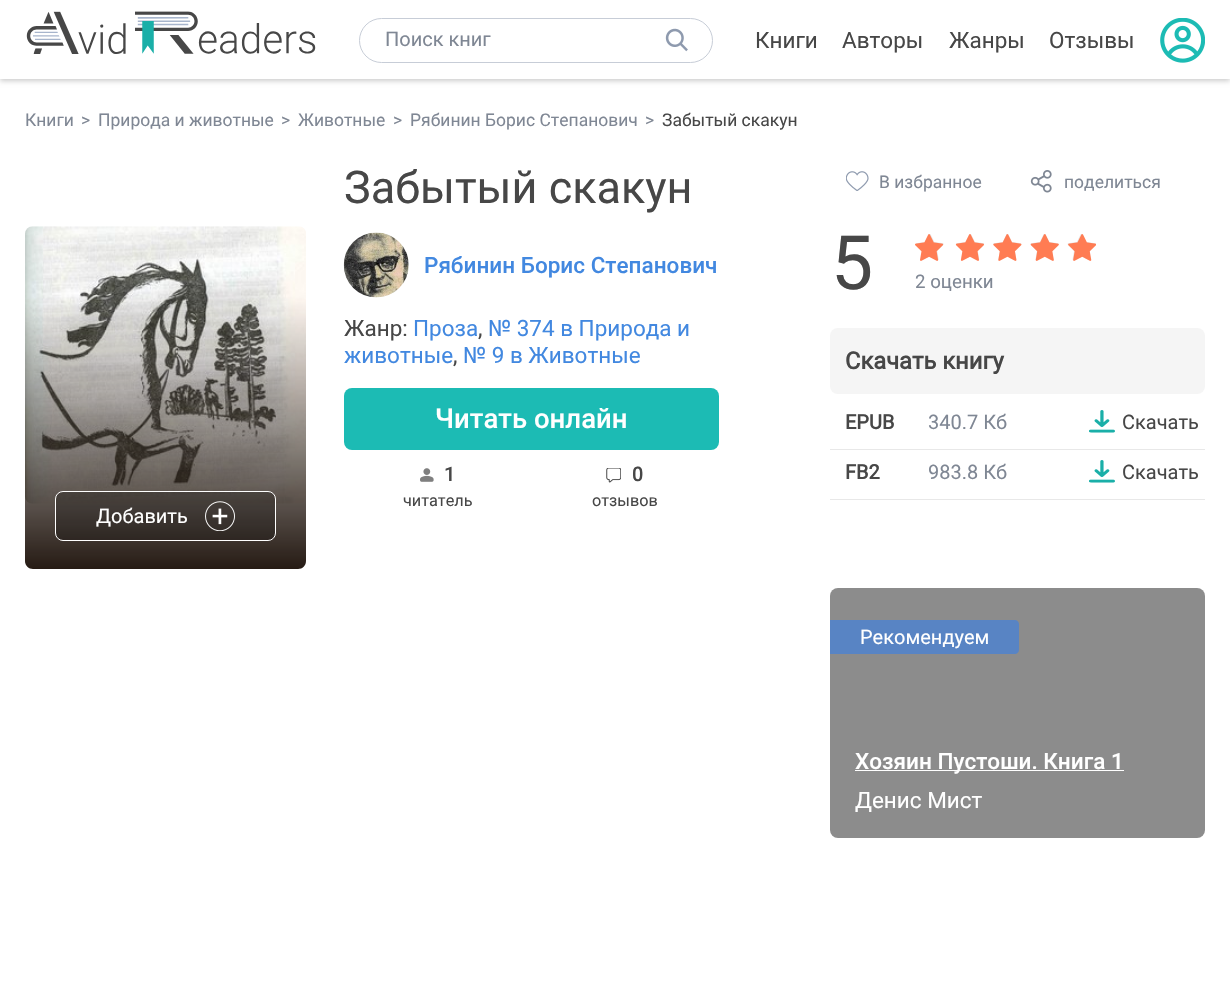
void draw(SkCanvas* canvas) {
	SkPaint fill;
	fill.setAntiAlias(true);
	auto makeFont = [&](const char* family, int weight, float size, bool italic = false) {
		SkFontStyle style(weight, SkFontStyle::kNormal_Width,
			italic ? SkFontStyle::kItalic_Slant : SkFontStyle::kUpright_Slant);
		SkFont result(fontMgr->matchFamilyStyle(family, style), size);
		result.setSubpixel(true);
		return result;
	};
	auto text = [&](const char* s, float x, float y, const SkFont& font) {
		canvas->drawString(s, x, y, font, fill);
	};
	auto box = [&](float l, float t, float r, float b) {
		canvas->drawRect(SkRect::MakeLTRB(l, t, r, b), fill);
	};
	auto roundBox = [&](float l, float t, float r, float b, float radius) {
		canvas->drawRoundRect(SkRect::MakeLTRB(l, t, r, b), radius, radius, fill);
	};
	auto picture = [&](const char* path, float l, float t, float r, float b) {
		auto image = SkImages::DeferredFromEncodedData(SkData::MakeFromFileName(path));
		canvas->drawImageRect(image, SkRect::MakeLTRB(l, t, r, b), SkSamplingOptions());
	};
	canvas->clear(0xFFFFFFFF);
	fill.setColor(0x33000000);
	fill.setMaskFilter(SkMaskFilter::MakeBlur(kNormal_SkBlurStyle, 2.5f));
	canvas->drawRect(SkRect::MakeLTRB(0, 3, 1230, 81), fill);
	fill.setMaskFilter(nullptr);
	fill.setColor(0xFFFFFFFF);
	box(0, 0, 1230, 79);
	picture("image0.png", 26, 11, 316, 54);
	fill.setStyle(SkPaint::kStroke_Style);
	fill.setStrokeWidth(1);
	fill.setColor(0xFFC7CDD7);
	canvas->drawRoundRect(SkRect::MakeLTRB(359.5f, 18.5f, 712.5f, 62.5f), 22, 22, fill);
	picture("image1.png", 665, 28, 688, 52);
	picture("image2.png", 1160, 18, 1205, 63);
	picture("image3.png", 343, 232, 409, 298);
	picture("image4.png", 916, 234, 1096, 260);
	picture("image5.png", 915, 234, 1096, 261);
	fill.setStyle(SkPaint::kFill_Style);
	fill.setColor(0xFF1CBBB4);
	roundBox(344, 388, 719, 450, 8);
	picture("image6.png", 420, 468, 434, 482);
	picture("image7.png", 606, 468, 621, 483);
	picture("image8.png", 25, 226, 306, 504);
	{
		const SkColor colors[] = {0xFF261B14, 0x00261B14};
		const float stops[] = {0, 1};
		const SkPoint ends[] = {{166, 569}, {166, 296}};
		fill.setShader(SkGradientShader::MakeLinear(ends, colors, stops, 2, SkTileMode::kClamp));
		fill.setAlpha(255);
	}
	canvas->drawPath(SkPathBuilder().moveTo(25, 296).lineTo(306, 296).lineTo(306, 561).cubicTo(306, 565.5f, 302.5f, 569, 298, 569).lineTo(33, 569).cubicTo(28.5f, 569, 25, 565.5f, 25, 561).close().detach(), fill);
	fill.setShader(nullptr);
	fill.setColor(0x40000000);
	canvas->drawRoundRect(SkRect::MakeLTRB(55.5f, 491.5f, 275.5f, 540.5f), 7.5f, 7.5f, fill);
	fill.setStyle(SkPaint::kStroke_Style);
	fill.setColor(0xFFFFFFFF);
	canvas->drawRoundRect(SkRect::MakeLTRB(55.5f, 491.5f, 275.5f, 540.5f), 7.5f, 7.5f, fill);
	picture("image9.png", 205, 501, 235, 531);
	picture("image10.png", 846, 171, 869, 191);
	picture("image11.png", 1030, 170, 1052, 193);
	fill.setStyle(SkPaint::kFill_Style);
	fill.setColor(0xFFF5F5F5);
	roundBox(830, 328, 1205, 394, 8);
	fill.setColor(0xFFE8E8E8);
	box(830, 449, 1205, 450);
	picture("image12.png", 1089, 410, 1115, 433);
	box(830, 499, 1205, 500);
	picture("image12.png", 1089, 460, 1115, 483);
	fill.setColor(0xFF8C8C8C);
	roundBox(830, 588, 1205, 838, 8);
	fill.setColor(0xFF5884C4);
	canvas->drawPath(SkPathBuilder().moveTo(830, 620).lineTo(1015, 620).cubicTo(1017, 620, 1019, 622, 1019, 624).lineTo(1019, 650).cubicTo(1019, 652, 1017, 654, 1015, 654).lineTo(830, 654).close().detach(), fill);
	fill.setColor(0xFFFFFFFF);
	box(855, 770, 1124, 771);
	auto font1 = makeFont("Roboto", 400, 20);
	fill.setColor(0xFF7F8794);
	text("Поиск книг", 385, 46, font1);
	auto font2 = makeFont("Roboto", 400, 22.5f);
	fill.setColor(0xFF474747);
	text("Книги", 755, 48, font2);
	text("Авторы", 842, 48, font2);
	text("Жанры", 949, 48, font2);
	text("Отзывы", 1049, 48, font2);
	auto font3 = makeFont("Roboto", 400, 17.5f);
	fill.setColor(0xFF7F8794);
	text("Книги", 25, 126, font3);
	text(">", 81, 126, font3);
	text("Природа и животные", 98, 126, font3);
	text(">", 281, 126, font3);
	text("Животные", 298, 126, font3);
	text(">", 393, 126, font3);
	text("Рябинин Борис Степанович", 410, 126, font3);
	text(">", 645, 126, font3);
	fill.setColor(0xFF474747);
	text("Забытый скакун", 662, 126, font3);
	auto font4 = makeFont("Roboto", 400, 45);
	text("Забытый скакун", 344, 203, font4);
	auto font5 = makeFont("Roboto", 500, 22.5f);
	fill.setColor(0xFF4288E0);
	text("Рябинин Борис Степанович", 424, 273, font5);
	auto font6 = makeFont("Roboto", 400, 75);
	fill.setColor(0xFF474747);
	text("5", 831, 289, font6);
	auto font7 = makeFont("Roboto", 400, 18.75f);
	fill.setColor(0xFF7F8794);
	text("2 оценки", 915, 288, font7);
	fill.setColor(0xFF474747);
	text("Жанр:", 344, 336, font2);
	fill.setColor(0xFF4288E0);
	text("Проза", 413, 336, font2);
	fill.setColor(0xFF474747);
	text(",", 478, 336, font2);
	fill.setColor(0xFF4288E0);
	text("№ 374 в Природа и", 488, 336, font2);
	text("животные", 344, 363, font2);
	fill.setColor(0xFF474747);
	text(",", 453, 363, font2);
	fill.setColor(0xFF4288E0);
	text("№ 9 в Животные", 463, 363, font2);
	auto font8 = makeFont("Roboto", 500, 27.5f);
	fill.setColor(0xFFFFFFFF);
	text("Читать онлайн", 435, 428, font8);
	auto font9 = makeFont("Roboto", 500, 20);
	fill.setColor(0xFF474747);
	text("1", 444, 481, font9);
	auto font10 = makeFont("Roboto", 400, 16.25f);
	text("читатель", 403, 506, font10);
	text("0", 632, 481, font9);
	text("отзывов", 592, 506, font10);
	fill.setColor(0xFFFFFFFF);
	text("Добавить", 96, 523, font1);
	fill.setColor(0xFF7F8794);
	text("В избранное", 879, 188, font3);
	text("поделиться", 1064, 188, font3);
	auto font11 = makeFont("Roboto", 700, 23.75f);
	fill.setColor(0xFF474747);
	text("Скачать книгу", 845, 369, font11);
	auto font12 = makeFont("Roboto", 700, 20);
	text("EPUB", 845, 429, font12);
	fill.setColor(0xFF7F8794);
	text("340.7 Кб", 928, 429, font1);
	fill.setColor(0xFF474747);
	text("Скачать", 1122, 429, font1);
	text("FB2", 845, 479, font12);
	fill.setColor(0xFF7F8794);
	text("983.8 Кб", 928, 479, font1);
	fill.setColor(0xFF474747);
	text("Скачать", 1122, 479, font1);
	fill.setColor(0xFFFFFFFF);
	text("Рекомендуем", 860, 644, font1);
	text("Хозяин Пустоши. Книга 1", 855, 769, font5);
	text("Денис Мист", 855, 808, font2);
}
